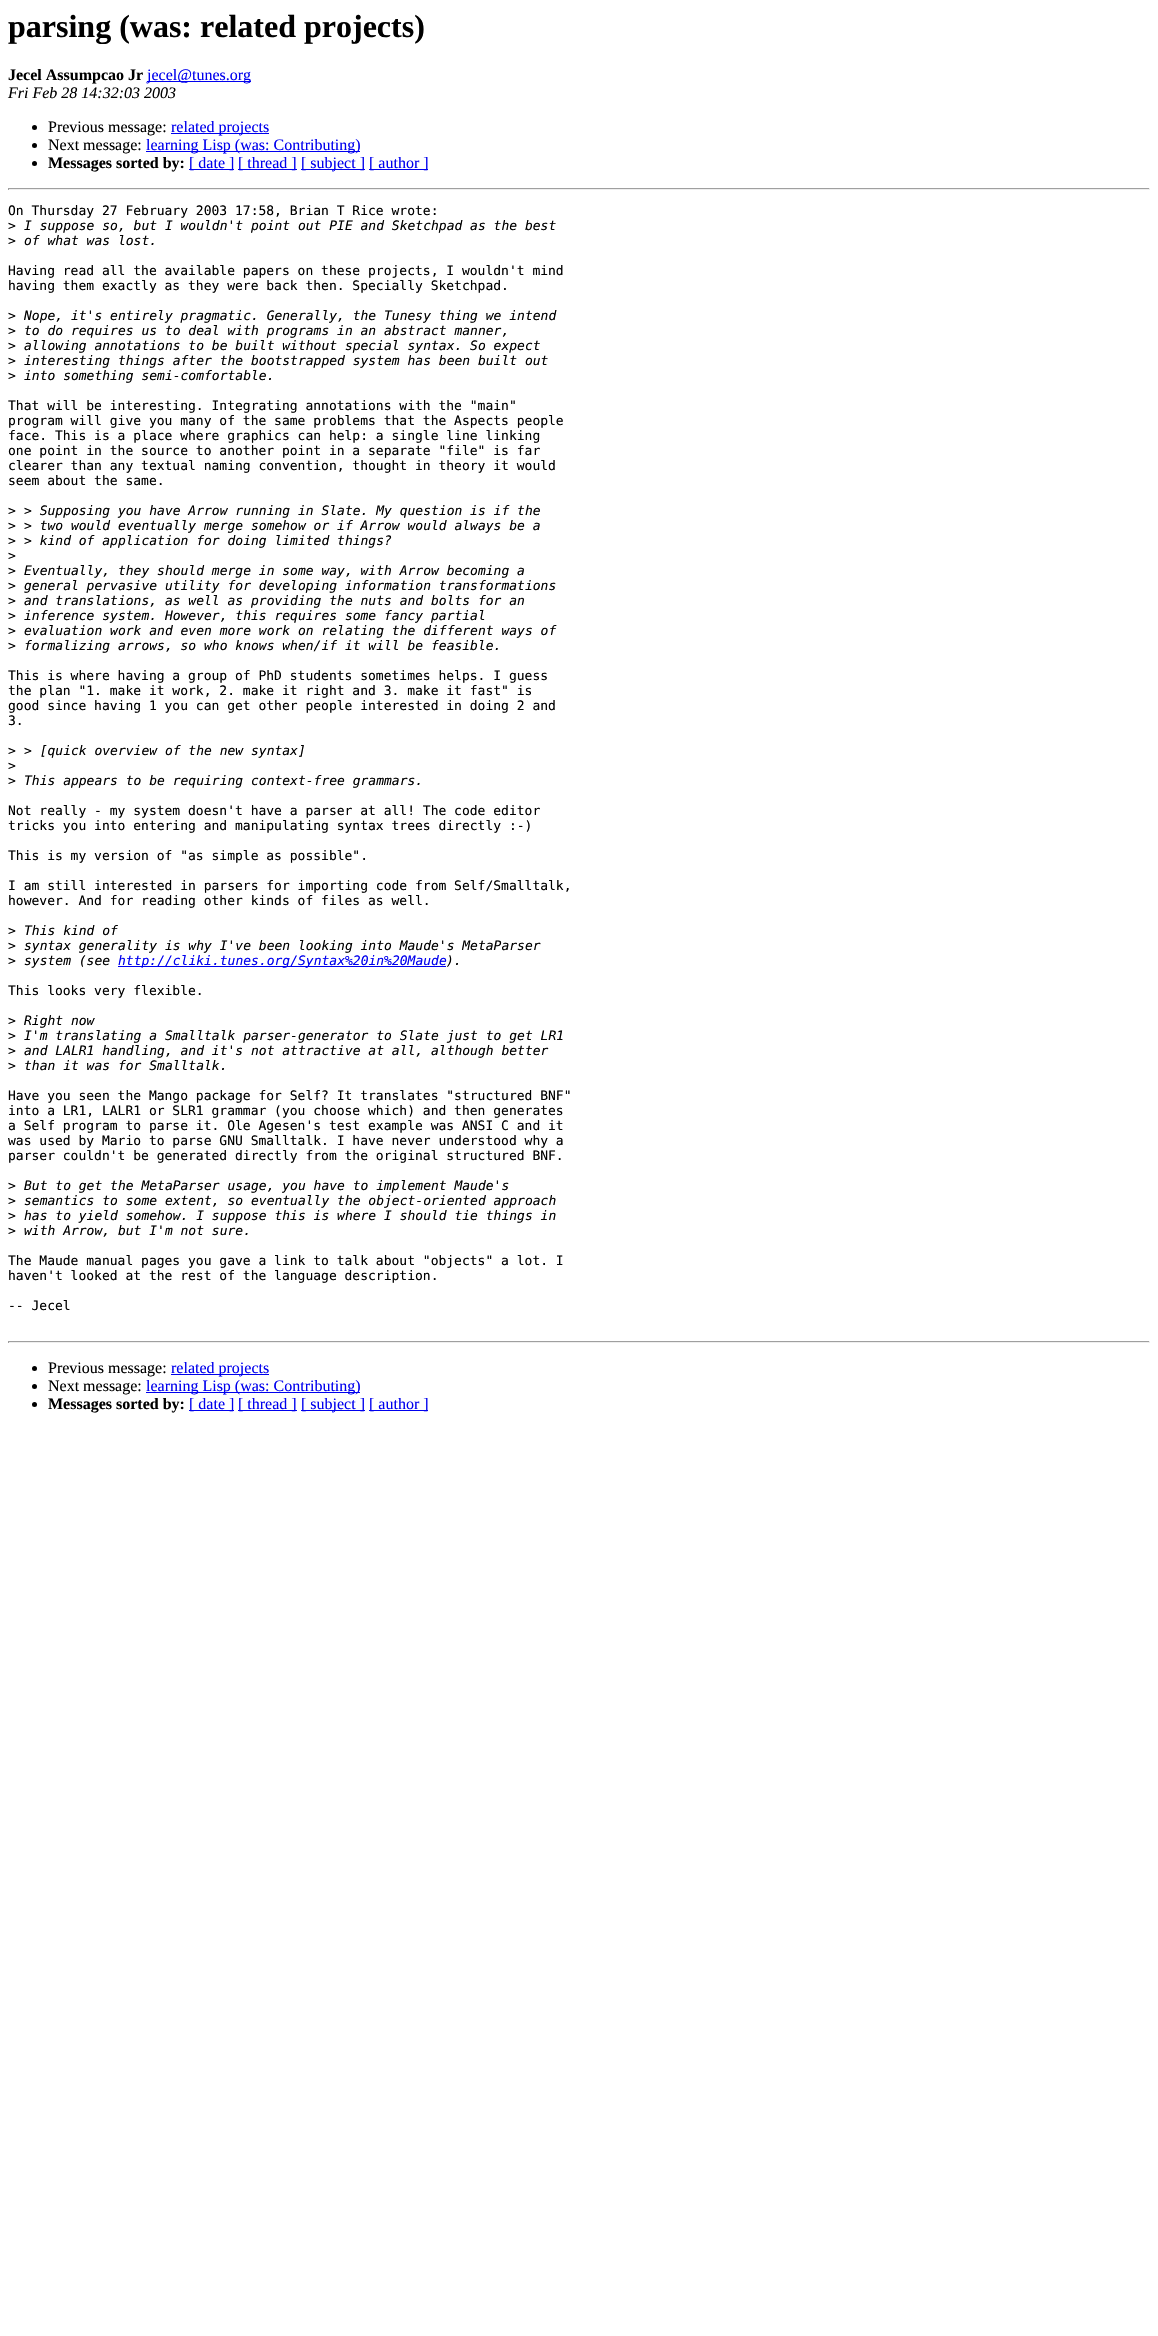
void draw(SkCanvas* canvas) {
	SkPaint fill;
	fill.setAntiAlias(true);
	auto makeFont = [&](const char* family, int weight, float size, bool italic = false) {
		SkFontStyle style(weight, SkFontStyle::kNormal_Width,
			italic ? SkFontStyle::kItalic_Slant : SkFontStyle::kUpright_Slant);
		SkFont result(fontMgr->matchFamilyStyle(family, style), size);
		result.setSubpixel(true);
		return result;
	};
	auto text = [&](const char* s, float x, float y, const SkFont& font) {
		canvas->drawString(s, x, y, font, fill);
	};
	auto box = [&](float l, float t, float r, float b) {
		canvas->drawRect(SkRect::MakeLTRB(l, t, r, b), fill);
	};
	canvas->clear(0xFFFFFFFF);
	fill.setColor(0xFF0000EE);
	box(147, 81, 251, 82);
	fill.setColor(0xFF000000);
	canvas->drawCircle(34.5f, 127.5f, 2.5f, fill);
	fill.setColor(0xFF0000EE);
	box(171, 133, 269, 134);
	fill.setColor(0xFF000000);
	canvas->drawCircle(34.5f, 145.5f, 2.5f, fill);
	fill.setColor(0xFF0000EE);
	box(146, 151, 360, 152);
	fill.setColor(0xFF000000);
	canvas->drawCircle(34.5f, 163.5f, 2.5f, fill);
	fill.setColor(0xFF0000EE);
	box(189, 169, 234, 170);
	box(238, 169, 297, 170);
	box(301, 169, 365, 170);
	box(369, 169, 428, 170);
	fill.setColor(0xFF9F9F9F);
	box(8, 188, 1150, 189);
	fill.setColor(0xFFEEEEEE);
	box(1149, 188, 1150, 190);
	box(8, 189, 1150, 190);
	fill.setColor(0xFF9F9F9F);
	box(8, 188, 9, 190);
	fill.setColor(0xFF0000EE);
	box(118, 966, 446, 967);
	fill.setColor(0xFF9F9F9F);
	box(8, 1341, 1150, 1342);
	fill.setColor(0xFFEEEEEE);
	box(1149, 1341, 1150, 1343);
	box(8, 1342, 1150, 1343);
	fill.setColor(0xFF9F9F9F);
	box(8, 1341, 9, 1343);
	fill.setColor(0xFF000000);
	canvas->drawCircle(34.5f, 1368.5f, 2.5f, fill);
	fill.setColor(0xFF0000EE);
	box(171, 1374, 269, 1375);
	fill.setColor(0xFF000000);
	canvas->drawCircle(34.5f, 1386.5f, 2.5f, fill);
	fill.setColor(0xFF0000EE);
	box(146, 1392, 360, 1393);
	fill.setColor(0xFF000000);
	canvas->drawCircle(34.5f, 1404.5f, 2.5f, fill);
	fill.setColor(0xFF0000EE);
	box(189, 1410, 234, 1411);
	box(238, 1410, 297, 1411);
	box(301, 1410, 365, 1411);
	box(369, 1410, 428, 1411);
	auto font1 = makeFont("Liberation Serif", 700, 32);
	fill.setColor(0xFF000000);
	text("parsing (was: related projects)", 8, 37, font1);
	auto font2 = makeFont("Liberation Serif", 700, 16);
	text("Jecel Assumpcao Jr", 8, 80, font2);
	auto font3 = makeFont("Liberation Serif", 400, 16);
	fill.setColor(0xFF0000EE);
	text("jecel@tunes.org", 147, 80, font3);
	auto font4 = makeFont("Liberation Serif", 400, 16, true);
	fill.setColor(0xFF000000);
	text("Fri Feb 28 14:32:03 2003", 8, 98, font4);
	text("Previous message:", 48, 132, font3);
	fill.setColor(0xFF0000EE);
	text("related projects", 171, 132, font3);
	fill.setColor(0xFF000000);
	text("Next message:", 48, 150, font3);
	fill.setColor(0xFF0000EE);
	text("learning Lisp (was: Contributing)", 146, 150, font3);
	fill.setColor(0xFF000000);
	text("Messages sorted by:", 48, 168, font2);
	fill.setColor(0xFF0000EE);
	text("[ date ]", 189, 168, font3);
	text("[ thread ]", 238, 168, font3);
	text("[ subject ]", 301, 168, font3);
	text("[ author ]", 369, 168, font3);
	auto font5 = makeFont("DejaVu Sans Mono", 400, 13);
	fill.setColor(0xFF000000);
	text("On Thursday 27 February 2003 17:58, Brian T Rice wrote:", 8, 215, font5);
	text(">", 8, 230, font5);
	auto font6 = makeFont("DejaVu Sans Mono", 400, 13, true);
	text("I suppose so, but I wouldn't point out PIE and Sketchpad as the best", 24, 230, font6);
	text(">", 8, 245, font5);
	text("of what was lost.", 24, 245, font6);
	text("Having read all the available papers on these projects, I wouldn't mind", 8, 275, font5);
	text("having them exactly as they were back then. Specially Sketchpad.", 8, 290, font5);
	text(">", 8, 320, font5);
	text("Nope, it's entirely pragmatic. Generally, the Tunesy thing we intend", 24, 320, font6);
	text(">", 8, 335, font5);
	text("to do requires us to deal with programs in an abstract manner,", 24, 335, font6);
	text(">", 8, 350, font5);
	text("allowing annotations to be built without special syntax. So expect", 24, 350, font6);
	text(">", 8, 365, font5);
	text("interesting things after the bootstrapped system has been built out", 24, 365, font6);
	text(">", 8, 380, font5);
	text("into something semi-comfortable.", 24, 380, font6);
	text("That will be interesting. Integrating annotations with the \"main\"", 8, 410, font5);
	text("program will give you many of the same problems that the Aspects people", 8, 425, font5);
	text("face. This is a place where graphics can help: a single line linking", 8, 440, font5);
	text("one point in the source to another point in a separate \"file\" is far", 8, 455, font5);
	text("clearer than any textual naming convention, thought in theory it would", 8, 470, font5);
	text("seem about the same.", 8, 485, font5);
	text(">", 8, 515, font5);
	text("> Supposing you have Arrow running in Slate. My question is if the", 24, 515, font6);
	text(">", 8, 530, font5);
	text("> two would eventually merge somehow or if Arrow would always be a", 24, 530, font6);
	text(">", 8, 545, font5);
	text("> kind of application for doing limited things?", 24, 545, font6);
	text(">", 8, 560, font5);
	text(">", 8, 575, font5);
	text("Eventually, they should merge in some way, with Arrow becoming a", 24, 575, font6);
	text(">", 8, 590, font5);
	text("general pervasive utility for developing information transformations", 24, 590, font6);
	text(">", 8, 605, font5);
	text("and translations, as well as providing the nuts and bolts for an", 24, 605, font6);
	text(">", 8, 620, font5);
	text("inference system. However, this requires some fancy partial", 24, 620, font6);
	text(">", 8, 635, font5);
	text("evaluation work and even more work on relating the different ways of", 24, 635, font6);
	text(">", 8, 650, font5);
	text("formalizing arrows, so who knows when/if it will be feasible.", 24, 650, font6);
	text("This is where having a group of PhD students sometimes helps. I guess", 8, 680, font5);
	text("the plan \"1. make it work, 2. make it right and 3. make it fast\" is", 8, 695, font5);
	text("good since having 1 you can get other people interested in doing 2 and", 8, 710, font5);
	text("3.", 8, 725, font5);
	text(">", 8, 755, font5);
	text("> [quick overview of the new syntax]", 24, 755, font6);
	text(">", 8, 770, font5);
	text(">", 8, 785, font5);
	text("This appears to be requiring context-free grammars.", 24, 785, font6);
	text("Not really - my system doesn't have a parser at all! The code editor", 8, 815, font5);
	text("tricks you into entering and manipulating syntax trees directly :-)", 8, 830, font5);
	text("This is my version of \"as simple as possible\".", 8, 860, font5);
	text("I am still interested in parsers for importing code from Self/Smalltalk,", 8, 890, font5);
	text("however. And for reading other kinds of files as well.", 8, 905, font5);
	text(">", 8, 935, font5);
	text("This kind of", 24, 935, font6);
	text(">", 8, 950, font5);
	text("syntax generality is why I've been looking into Maude's MetaParser", 24, 950, font6);
	text(">", 8, 965, font5);
	text("system (see", 24, 965, font6);
	fill.setColor(0xFF0000EE);
	text("http://cliki.tunes.org/Syntax%20in%20Maude", 118, 965, font6);
	fill.setColor(0xFF000000);
	text(").", 446, 965, font6);
	text("This looks very flexible.", 8, 995, font5);
	text(">", 8, 1025, font5);
	text("Right now", 24, 1025, font6);
	text(">", 8, 1040, font5);
	text("I'm translating a Smalltalk parser-generator to Slate just to get LR1", 24, 1040, font6);
	text(">", 8, 1055, font5);
	text("and LALR1 handling, and it's not attractive at all, although better", 24, 1055, font6);
	text(">", 8, 1070, font5);
	text("than it was for Smalltalk.", 24, 1070, font6);
	text("Have you seen the Mango package for Self? It translates \"structured BNF\"", 8, 1100, font5);
	text("into a LR1, LALR1 or SLR1 grammar (you choose which) and then generates", 8, 1115, font5);
	text("a Self program to parse it. Ole Agesen's test example was ANSI C and it", 8, 1130, font5);
	text("was used by Mario to parse GNU Smalltalk. I have never understood why a", 8, 1145, font5);
	text("parser couldn't be generated directly from the original structured BNF.", 8, 1160, font5);
	text(">", 8, 1190, font5);
	text("But to get the MetaParser usage, you have to implement Maude's", 24, 1190, font6);
	text(">", 8, 1205, font5);
	text("semantics to some extent, so eventually the object-oriented approach", 24, 1205, font6);
	text(">", 8, 1220, font5);
	text("has to yield somehow. I suppose this is where I should tie things in", 24, 1220, font6);
	text(">", 8, 1235, font5);
	text("with Arrow, but I'm not sure.", 24, 1235, font6);
	text("The Maude manual pages you gave a link to talk about \"objects\" a lot. I", 8, 1265, font5);
	text("haven't looked at the rest of the language description.", 8, 1280, font5);
	text("-- Jecel", 8, 1310, font5);
	text("Previous message:", 48, 1373, font3);
	fill.setColor(0xFF0000EE);
	text("related projects", 171, 1373, font3);
	fill.setColor(0xFF000000);
	text("Next message:", 48, 1391, font3);
	fill.setColor(0xFF0000EE);
	text("learning Lisp (was: Contributing)", 146, 1391, font3);
	fill.setColor(0xFF000000);
	text("Messages sorted by:", 48, 1409, font2);
	fill.setColor(0xFF0000EE);
	text("[ date ]", 189, 1409, font3);
	text("[ thread ]", 238, 1409, font3);
	text("[ subject ]", 301, 1409, font3);
	text("[ author ]", 369, 1409, font3);
}
